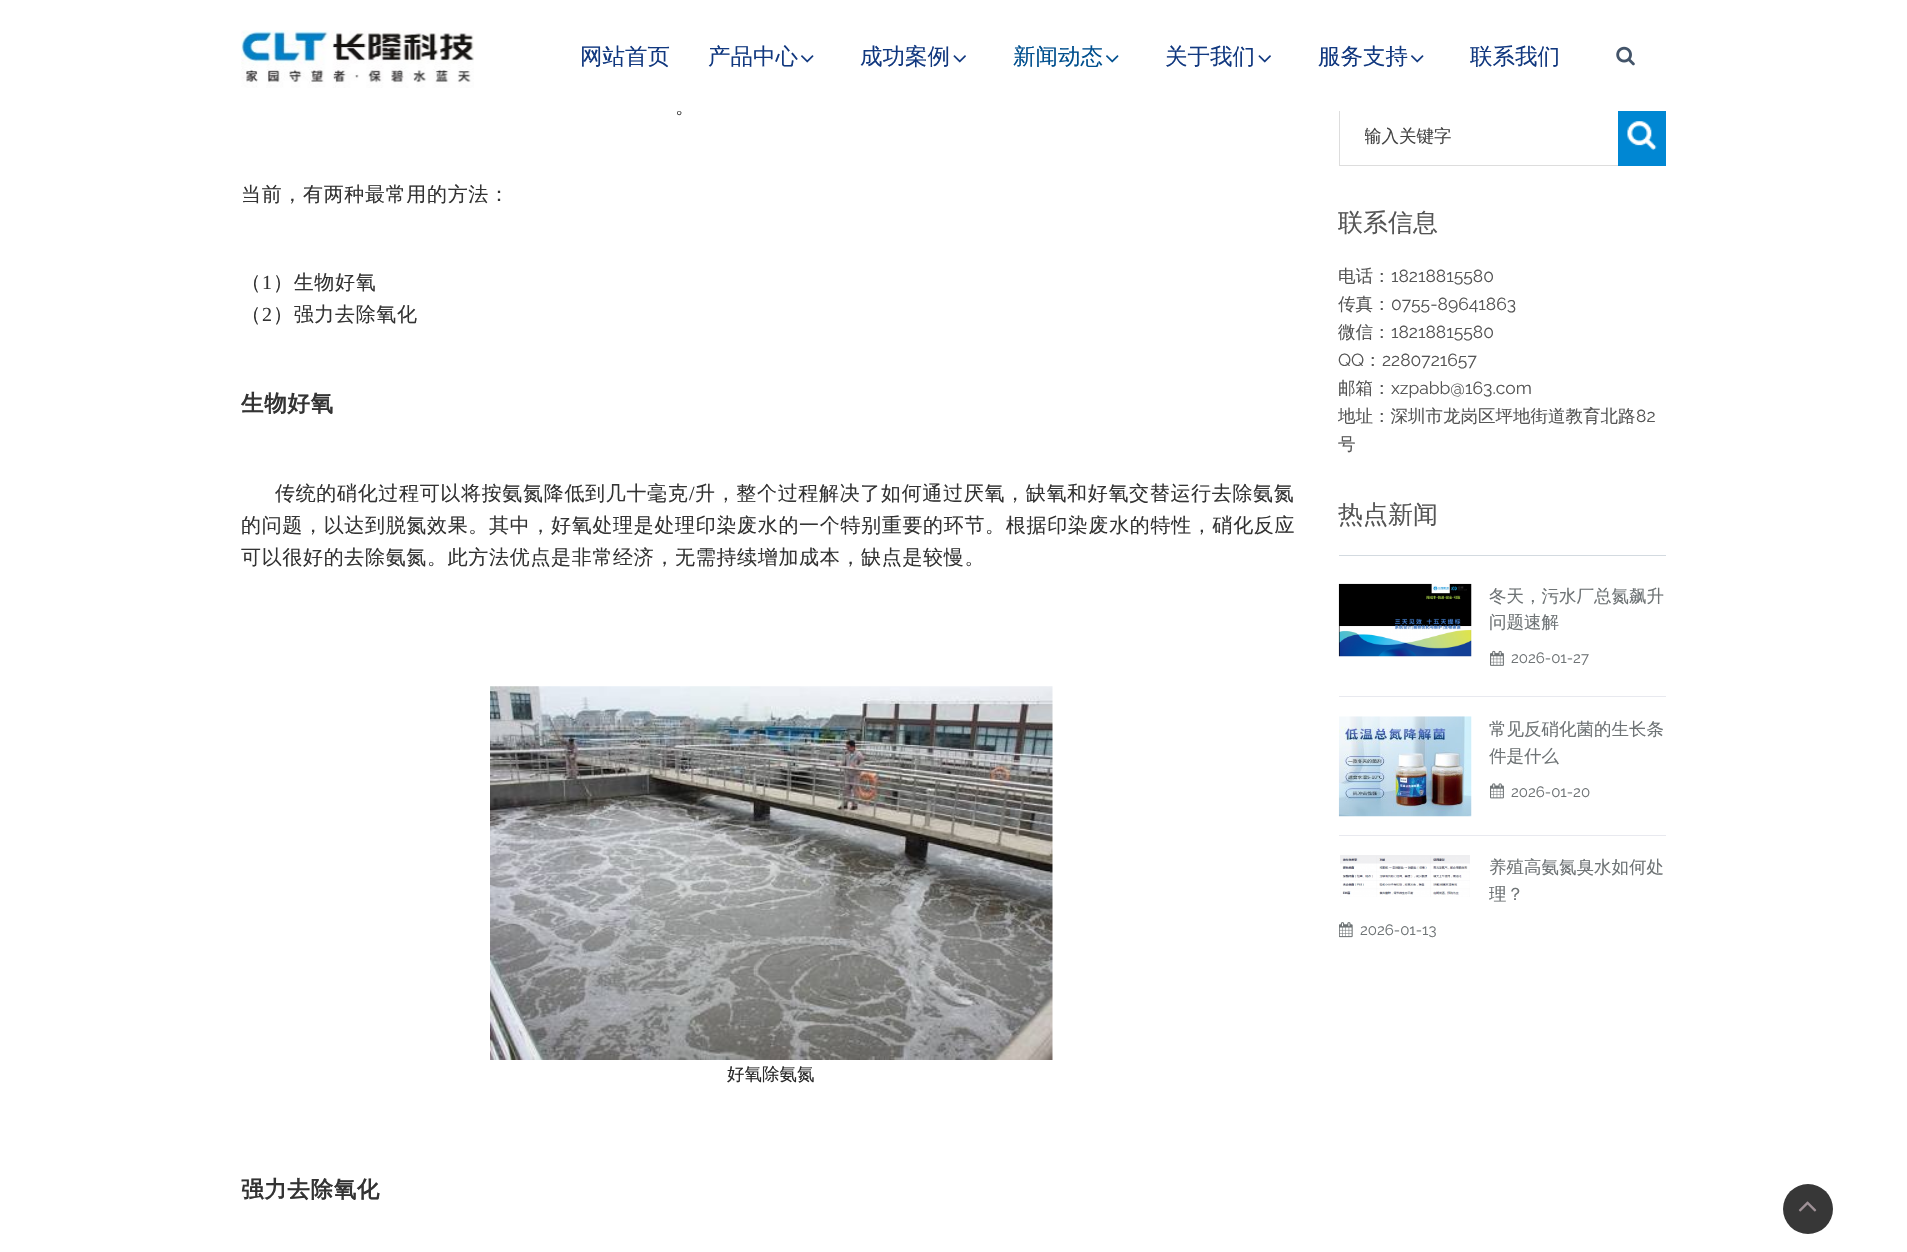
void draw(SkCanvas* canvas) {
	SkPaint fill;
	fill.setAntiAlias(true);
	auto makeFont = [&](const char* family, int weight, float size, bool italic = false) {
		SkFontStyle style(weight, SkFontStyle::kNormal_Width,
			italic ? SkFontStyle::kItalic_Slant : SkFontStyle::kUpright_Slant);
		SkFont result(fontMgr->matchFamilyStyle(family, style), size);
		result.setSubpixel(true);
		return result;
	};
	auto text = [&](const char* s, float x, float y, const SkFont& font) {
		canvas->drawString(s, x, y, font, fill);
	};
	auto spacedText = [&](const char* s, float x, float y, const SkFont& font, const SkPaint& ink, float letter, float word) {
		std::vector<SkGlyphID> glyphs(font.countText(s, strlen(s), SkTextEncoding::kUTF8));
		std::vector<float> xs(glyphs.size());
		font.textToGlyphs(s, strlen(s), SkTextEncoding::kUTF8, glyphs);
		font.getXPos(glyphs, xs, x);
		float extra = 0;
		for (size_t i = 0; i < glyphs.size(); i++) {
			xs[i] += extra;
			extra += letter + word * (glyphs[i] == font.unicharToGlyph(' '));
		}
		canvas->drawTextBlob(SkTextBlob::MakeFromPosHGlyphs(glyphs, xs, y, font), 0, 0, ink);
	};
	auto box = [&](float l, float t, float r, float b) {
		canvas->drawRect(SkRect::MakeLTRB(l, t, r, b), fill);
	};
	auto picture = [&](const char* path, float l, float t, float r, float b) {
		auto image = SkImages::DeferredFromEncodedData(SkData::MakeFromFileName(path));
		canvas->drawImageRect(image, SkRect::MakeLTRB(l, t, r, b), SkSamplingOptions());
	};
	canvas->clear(0xFFFFFFFF);
	picture("image0.png", 241, 30, 474, 88);
	picture("image1.png", 801, 55, 814, 63);
	picture("image2.png", 953, 55, 966, 63);
	picture("image3.png", 1106, 55, 1119, 63);
	picture("image2.png", 1258, 55, 1271, 63);
	picture("image1.png", 1411, 55, 1424, 63);
	picture("image4.png", 1616, 46, 1635, 66);
	picture("image5.png", 490, 686, 1053, 1060);
	fill.setColor(0xFFDDDDDD);
	box(1339, 165, 1618, 166);
	box(1339, 106, 1340, 166);
	fill.setColor(0xFF0087D3);
	box(1618, 111, 1666, 166);
	picture("image6.png", 1627, 121, 1657, 150);
	fill.setColor(0xFFD3DAE0);
	box(1339, 555, 1666, 556);
	fill.setColor(0xFFE8E9EF);
	box(1339, 696, 1666, 697);
	picture("image7.png", 1338, 583, 1472, 657);
	picture("image8.png", 1490, 650, 1504, 666);
	box(1339, 835, 1666, 836);
	picture("image9.png", 1338, 716, 1472, 817);
	picture("image10.png", 1490, 783, 1504, 799);
	picture("image11.png", 1340, 855, 1470, 897);
	picture("image12.png", 1339, 922, 1353, 938);
	fill.setColor(0xFF373737);
	canvas->drawCircle(1808, 1209, 25, fill);
	picture("image13.png", 1798, 1201, 1817, 1212);
	auto font1 = makeFont("WenQuanYi Zen Hei", 500, 22.5f);
	fill.setColor(0xFF11387F);
	text("网站首页", 580, 64, font1);
	text("产品中心", 708, 64, font1);
	text("成功案例", 860, 64, font1);
	fill.setColor(0xFF004F8E);
	text("新闻动态", 1013, 64, font1);
	fill.setColor(0xFF11387F);
	text("关于我们", 1165, 64, font1);
	text("服务支持", 1318, 64, font1);
	text("联系我们", 1470, 64, font1);
	auto font2 = makeFont("WenQuanYi Zen Hei", 500, 20);
	fill.setColor(0xFF333333);
	spacedText("。", 675, 113, font2, fill, 0.67f, 0);
	fill.setColor(0xFFFFFFFF);
	box(679, 106, 1340, 111);
	fill.setColor(0xFF333333);
	spacedText("当前，有两种最常用的方法：", 241, 201, font2, fill, 0.67f, 0);
	spacedText("（", 241, 289, font2, fill, 0.67f, 0);
	auto font3 = makeFont("Liberation Serif", 400, 20);
	spacedText("1", 262, 289, font3, fill, 0.67f, 0);
	spacedText("）生物好氧", 273, 289, font2, fill, 0.67f, 0);
	spacedText("（", 241, 321, font2, fill, 0.67f, 0);
	spacedText("2", 262, 321, font3, fill, 0.67f, 0);
	spacedText("）强力去除氧化", 273, 321, font2, fill, 0.67f, 0);
	auto font4 = makeFont("WenQuanYi Zen Hei", 700, 22.5f);
	spacedText("生物好氧", 241, 411, font4, fill, 0.67f, 0);
	spacedText("传统的硝化过程可以将按氨氮降低到几十毫克", 275, 500, font2, fill, 0.67f, 0);
	spacedText("/", 689, 500, font3, fill, 0.67f, 0);
	spacedText("升，整个过程解决了如何通过厌氧，缺氧和好氧交替运行去除氨氮", 695, 500, font2, fill, 0.67f, 0);
	spacedText("的问题，以达到脱氮效果。其中，好氧处理是处理印染废水的一个特别重要的环节。根据印染废水的特性，硝化反应", 241, 532, font2, fill, 0.67f, 0);
	spacedText("可以很好的去除氨氮。此方法优点是非常经济，无需持续增加成本，缺点是较慢。", 241, 564, font2, fill, 0.67f, 0);
	auto font5 = makeFont("WenQuanYi Zen Hei", 500, 17.5f);
	fill.setColor(0xFF292929);
	text("好氧除氨氮", 727, 1080, font5);
	fill.setColor(0xFF333333);
	spacedText("强力去除氧化", 241, 1197, font4, fill, 0.67f, 0);
	canvas->save();
	canvas->clipRect(SkRect::MakeLTRB(1365, 126, 1618, 149));
	fill.setColor(0xFF444444);
	text("输入关键字", 1364, 142, font5);
	canvas->restore();
	auto font6 = makeFont("WenQuanYi Zen Hei", 500, 25);
	fill.setColor(0xFF555555);
	text("联系信息", 1338, 231, font6);
	text("电话：", 1338, 282, font5);
	auto font7 = makeFont("Raleway", 400, 17.5f);
	text("18218815580", 1391, 282, font7);
	text("传真：", 1338, 310, font5);
	text("0755-89641863", 1391, 310, font7);
	text("微信：", 1338, 338, font5);
	text("18218815580", 1391, 338, font7);
	text("QQ", 1338, 366, font7);
	text("：", 1364, 366, font5);
	text("2280721657", 1382, 366, font7);
	text("邮箱：", 1338, 394, font5);
	text("xzpabb@163.com", 1391, 394, font7);
	text("地址：深圳市龙岗区坪地街道教育北路", 1338, 422, font5);
	text("82", 1636, 422, font7);
	text("号", 1338, 450, font5);
	text("热点新闻", 1338, 523, font6);
	fill.setColor(0xFF6E7375);
	text("冬天，污水厂总氮飙升", 1489, 602, font5);
	text("问题速解", 1489, 628, font5);
	auto font8 = makeFont("Raleway", 400, 15);
	text("2026-01-27", 1511, 663, font8);
	text("常见反硝化菌的生长条", 1489, 735, font5);
	text("件是什么", 1489, 762, font5);
	text("2026-01-20", 1511, 797, font8);
	text("养殖高氨氮臭水如何处", 1489, 873, font5);
	text("理？", 1489, 900, font5);
	text("2026-01-13", 1360, 935, font8);
}
